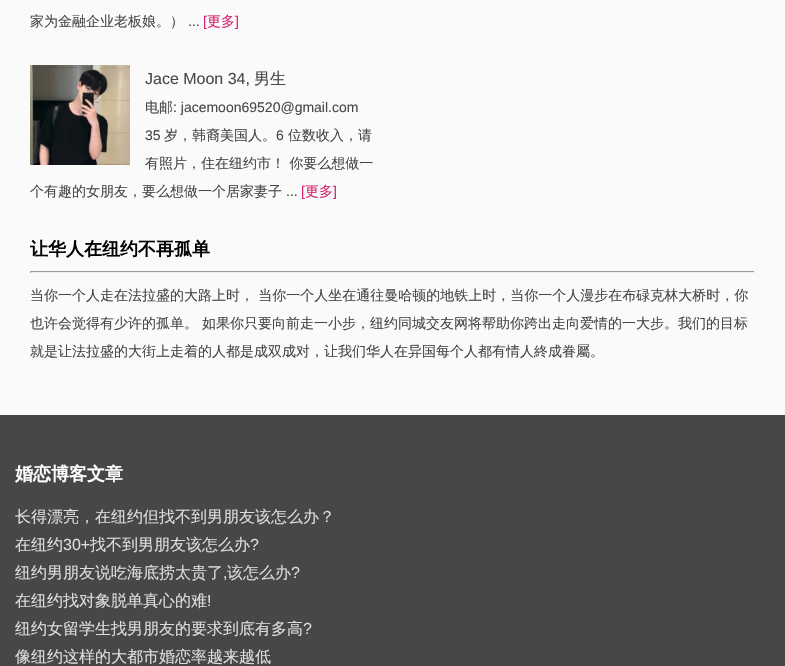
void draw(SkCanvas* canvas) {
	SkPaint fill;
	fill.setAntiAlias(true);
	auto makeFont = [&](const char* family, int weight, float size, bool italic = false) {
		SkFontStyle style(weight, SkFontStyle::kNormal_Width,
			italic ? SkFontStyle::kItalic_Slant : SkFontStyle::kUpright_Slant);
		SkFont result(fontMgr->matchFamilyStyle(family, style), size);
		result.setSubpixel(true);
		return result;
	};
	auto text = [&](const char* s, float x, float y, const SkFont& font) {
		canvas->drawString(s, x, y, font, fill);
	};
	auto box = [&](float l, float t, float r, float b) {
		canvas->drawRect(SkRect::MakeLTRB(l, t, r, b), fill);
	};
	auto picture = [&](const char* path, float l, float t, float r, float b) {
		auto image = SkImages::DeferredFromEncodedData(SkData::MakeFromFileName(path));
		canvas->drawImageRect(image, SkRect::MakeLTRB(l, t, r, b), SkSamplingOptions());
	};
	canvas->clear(0xFFFAFAFA);
	picture("image0.png", 30, 65, 130, 165);
	fill.setColor(0xFF9F9F9F);
	box(30, 271, 755, 272);
	fill.setColor(0xFFEEEEEE);
	box(754, 271, 755, 273);
	box(30, 272, 755, 273);
	fill.setColor(0xFF9F9F9F);
	box(30, 271, 31, 273);
	fill.setColor(0xFF474747);
	box(0, 415, 785, 666);
	auto font1 = makeFont("WenQuanYi Zen Hei", 500, 14);
	text("家为金融企业老板娘。）", 30, 26, font1);
	auto font2 = makeFont("Liberation Sans", 400, 14);
	text("...", 188, 26, font2);
	fill.setColor(0xFFD72171);
	text("[", 203, 26, font2);
	text("更多", 207, 26, font1);
	text("]", 235, 26, font2);
	auto font3 = makeFont("Liberation Sans", 400, 16);
	fill.setColor(0xFF474747);
	text("Jace Moon 34,", 145, 84, font3);
	auto font4 = makeFont("WenQuanYi Zen Hei", 500, 16);
	text("男生", 254, 84, font4);
	text("电邮", 145, 112, font1);
	text(": jacemoon69520@gmail.com", 173, 112, font2);
	text("35", 145, 140, font2);
	text("岁，韩裔美国人。", 164, 140, font1);
	text("6", 276, 140, font2);
	text("位数收入，请", 288, 140, font1);
	text("有照片，住在纽约市！ 你要么想做一", 145, 168, font1);
	text("个有趣的女朋友，要么想做一个居家妻子", 30, 196, font1);
	text("...", 286, 196, font2);
	fill.setColor(0xFFD72171);
	text("[", 301, 196, font2);
	text("更多", 305, 196, font1);
	text("]", 333, 196, font2);
	auto font5 = makeFont("WenQuanYi Zen Hei", 700, 18);
	fill.setColor(0xFF000000);
	text("让华人在纽约不再孤单", 30, 255, font5);
	fill.setColor(0xFF474747);
	text("当你一个人走在法拉盛的大路上时， 当你一个人坐在通往曼哈顿的地铁上时，当你一个人漫步在布碌克林大桥时，你", 30, 300, font1);
	text("也许会觉得有少许的孤单。", 30, 328, font1);
	text("如果你只要向前走一小步，纽约同城交友网将帮助你跨出走向爱情的一大步。我们的目标", 202, 328, font1);
	text("就是让法拉盛的大街上走着的人都是成双成对，让我们华人在异国每个人都有情人終成眷屬。", 30, 356, font1);
	fill.setColor(0xFFFFFFFF);
	text("婚恋博客文章", 15, 480, font5);
	fill.setColor(0xFFDDDDDD);
	text("长得漂亮，在纽约但找不到男朋友该怎么办？", 15, 522, font4);
	text("在纽约", 15, 550, font4);
	text("30+", 63, 550, font3);
	text("找不到男朋友该怎么办", 90, 550, font4);
	text("?", 250, 550, font3);
	text("纽约男朋友说吃海底捞太贵了", 15, 578, font4);
	text("该怎么办", 227, 578, font4);
	text("?", 291, 578, font3);
	text(",", 223, 578, font3);
	text("在纽约找对象脱单真心的难", 15, 606, font4);
	text("!", 207, 606, font3);
	text("纽约女留学生找男朋友的要求到底有多高", 15, 634, font4);
	text("?", 303, 634, font3);
	text("像纽约这样的大都市婚恋率越来越低", 15, 662, font4);
}
